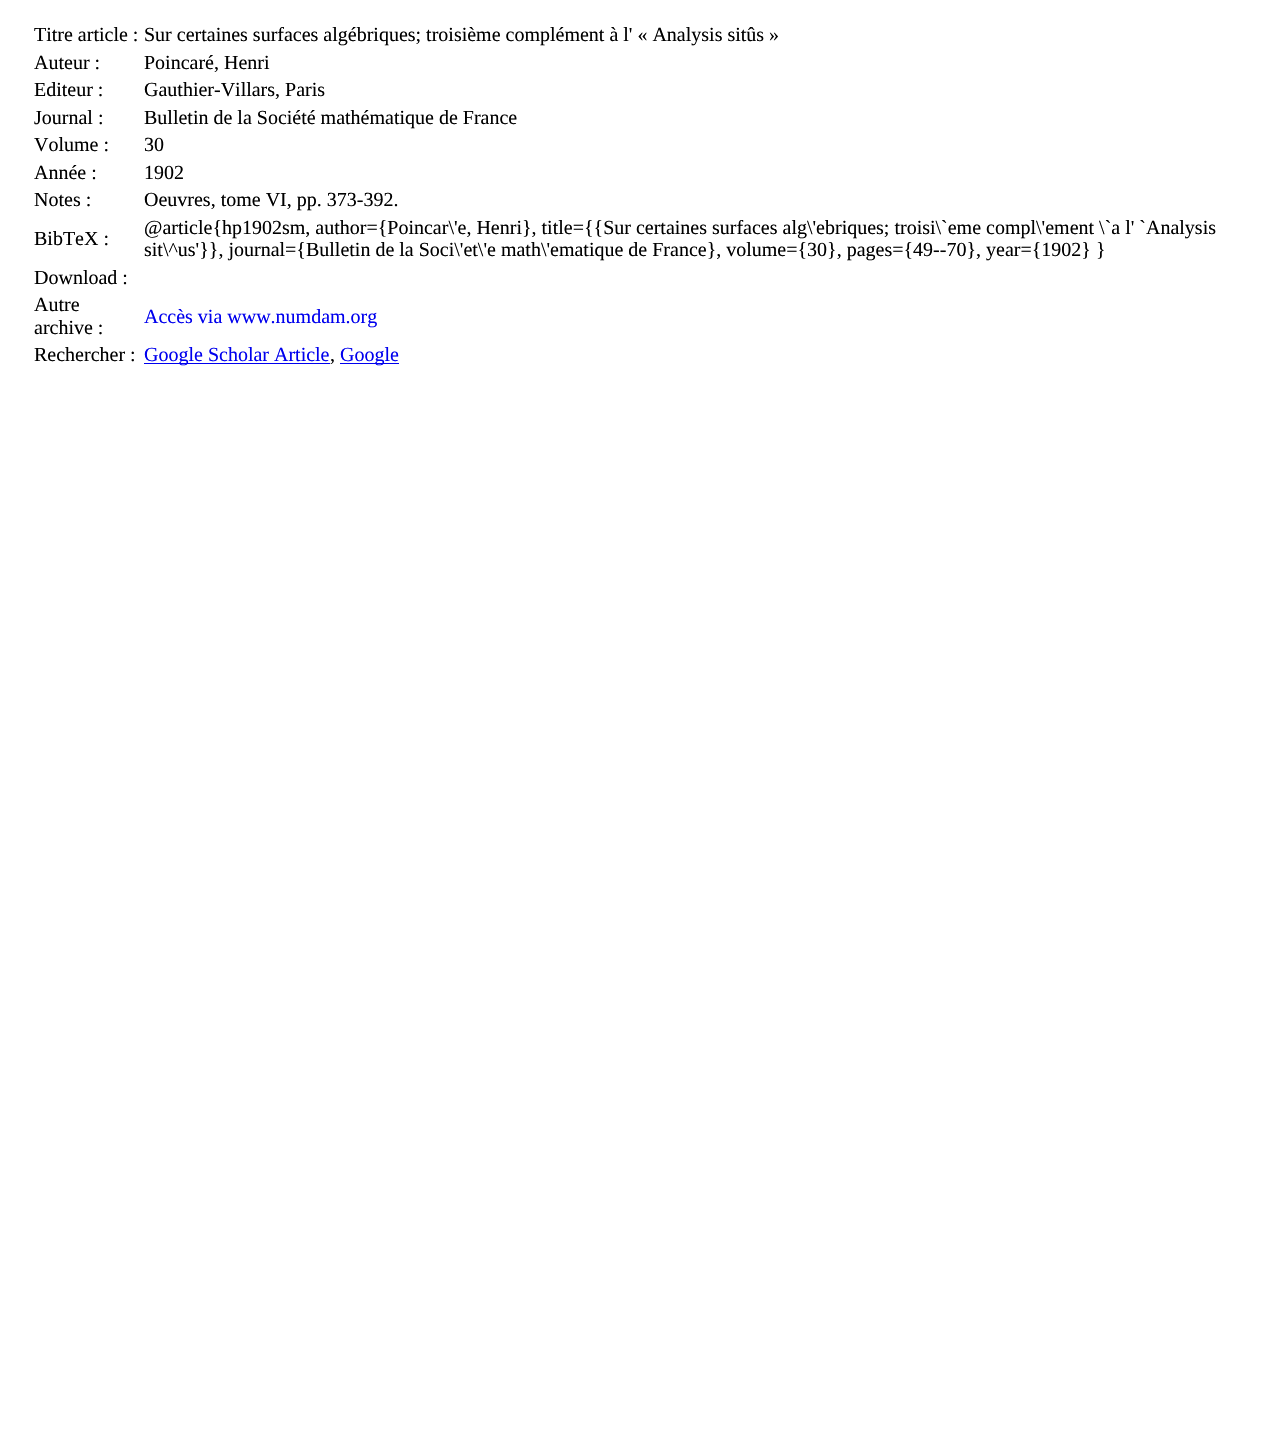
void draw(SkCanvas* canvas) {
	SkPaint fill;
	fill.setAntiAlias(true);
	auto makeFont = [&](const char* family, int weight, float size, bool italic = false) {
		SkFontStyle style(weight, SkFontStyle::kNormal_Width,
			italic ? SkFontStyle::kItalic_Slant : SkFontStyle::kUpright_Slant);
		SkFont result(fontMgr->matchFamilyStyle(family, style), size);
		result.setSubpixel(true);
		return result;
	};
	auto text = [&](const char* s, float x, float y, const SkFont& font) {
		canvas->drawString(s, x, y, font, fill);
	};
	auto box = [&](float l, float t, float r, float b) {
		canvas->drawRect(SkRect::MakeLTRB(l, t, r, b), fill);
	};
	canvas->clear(0xFFFFFFFF);
	fill.setColor(0xFF0000EE);
	box(144, 363, 330, 364);
	box(340, 363, 399, 364);
	auto font1 = makeFont("Liberation Serif", 400, 20);
	fill.setColor(0xFF000000);
	text("Titre article :", 34, 41, font1);
	text("Sur certaines surfaces algébriques; troisième complément à l' « Analysis sitûs »", 144, 41, font1);
	text("Auteur :", 34, 69, font1);
	text("Poincaré, Henri", 144, 69, font1);
	text("Editeur :", 34, 96, font1);
	text("Gauthier-Villars, Paris", 144, 96, font1);
	text("Journal :", 34, 124, font1);
	text("Bulletin de la Société mathématique de France", 144, 124, font1);
	text("Volume :", 34, 151, font1);
	text("30", 144, 151, font1);
	text("Année :", 34, 179, font1);
	text("1902", 144, 179, font1);
	text("Notes :", 34, 206, font1);
	text("Oeuvres, tome VI, pp. 373-392.", 144, 206, font1);
	text("BibTeX :", 34, 245, font1);
	text("@article{hp1902sm, author={Poincar\\'e, Henri}, title={{Sur certaines surfaces alg\\'ebriques; troisi\\`eme compl\\'ement \\`a l' `Analysis", 144, 234, font1);
	text("sit\\^us'}}, journal={Bulletin de la Soci\\'et\\'e math\\'ematique de France}, volume={30}, pages={49--70}, year={1902} }", 144, 256, font1);
	text("Download :", 34, 284, font1);
	text("Autre", 34, 311, font1);
	text("archive :", 34, 334, font1);
	fill.setColor(0xFF0000EE);
	text("Accès via www.numdam.org", 144, 323, font1);
	fill.setColor(0xFF000000);
	text("Rechercher :", 34, 361, font1);
	fill.setColor(0xFF0000EE);
	text("Google Scholar Article", 144, 361, font1);
	fill.setColor(0xFF000000);
	text(",", 330, 361, font1);
	fill.setColor(0xFF0000EE);
	text("Google", 340, 361, font1);
}
